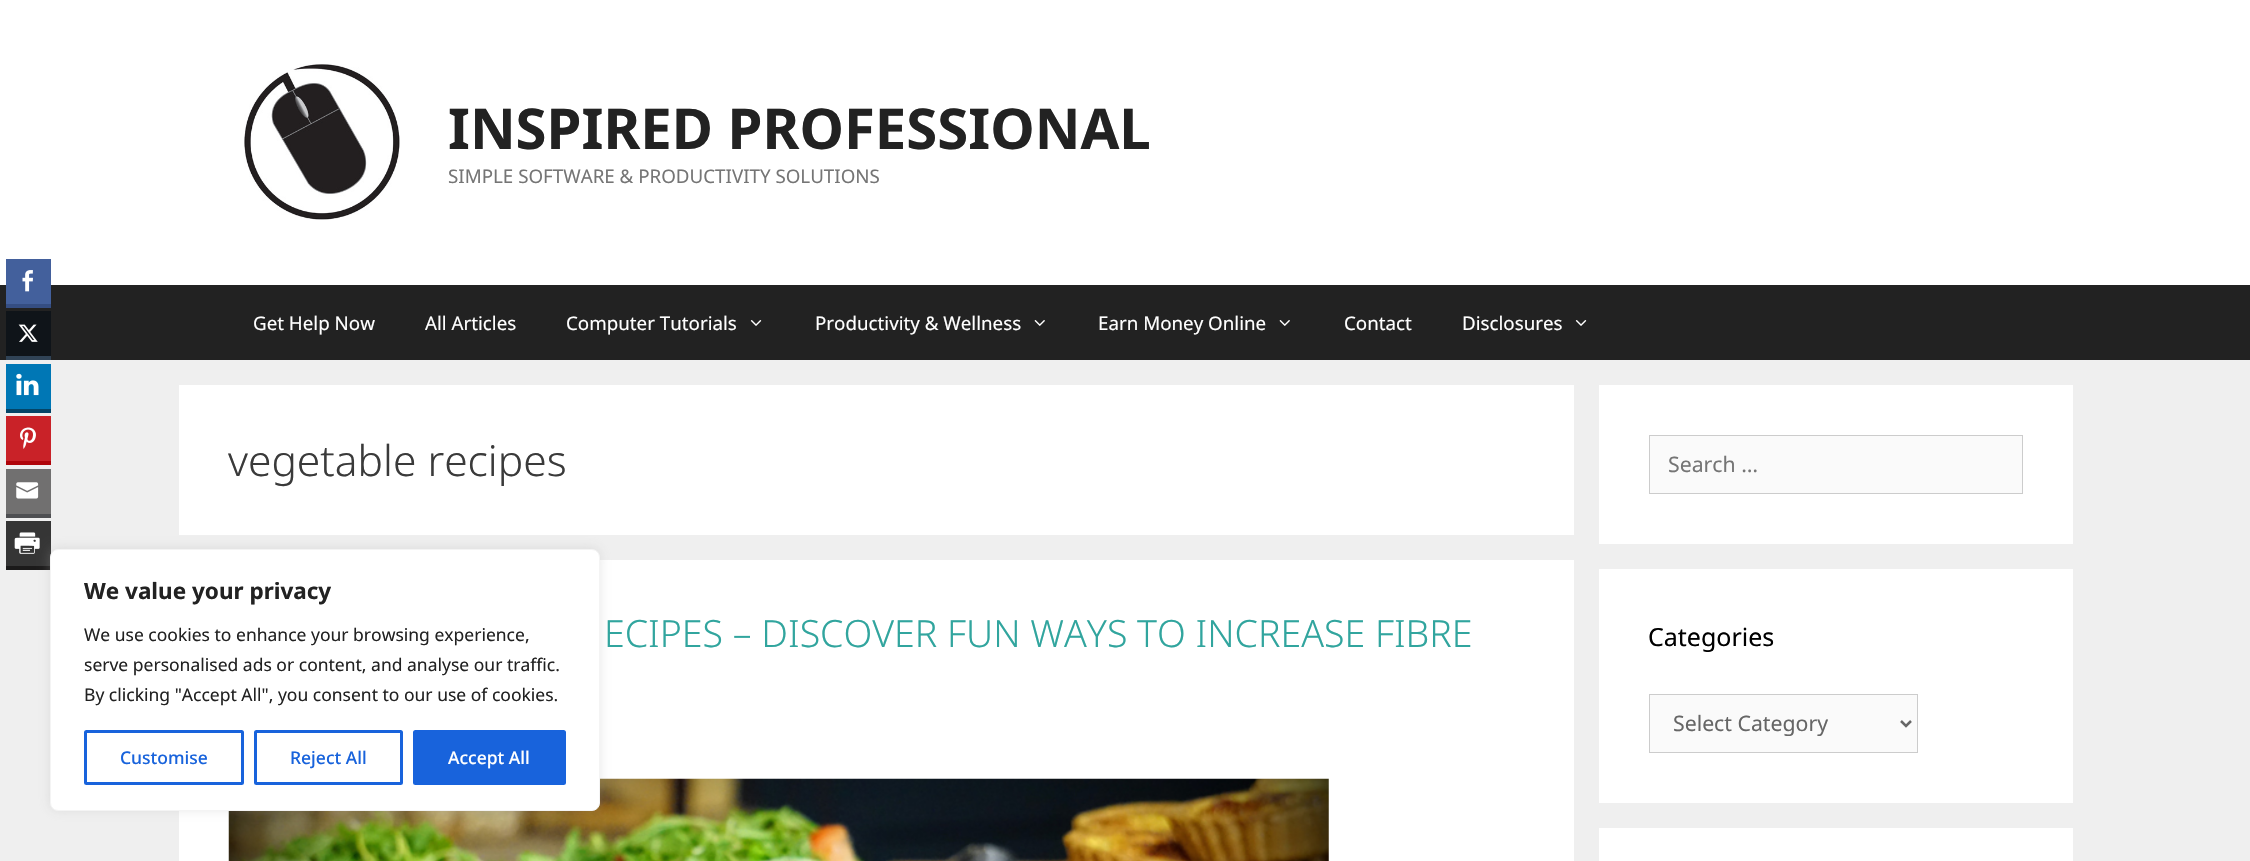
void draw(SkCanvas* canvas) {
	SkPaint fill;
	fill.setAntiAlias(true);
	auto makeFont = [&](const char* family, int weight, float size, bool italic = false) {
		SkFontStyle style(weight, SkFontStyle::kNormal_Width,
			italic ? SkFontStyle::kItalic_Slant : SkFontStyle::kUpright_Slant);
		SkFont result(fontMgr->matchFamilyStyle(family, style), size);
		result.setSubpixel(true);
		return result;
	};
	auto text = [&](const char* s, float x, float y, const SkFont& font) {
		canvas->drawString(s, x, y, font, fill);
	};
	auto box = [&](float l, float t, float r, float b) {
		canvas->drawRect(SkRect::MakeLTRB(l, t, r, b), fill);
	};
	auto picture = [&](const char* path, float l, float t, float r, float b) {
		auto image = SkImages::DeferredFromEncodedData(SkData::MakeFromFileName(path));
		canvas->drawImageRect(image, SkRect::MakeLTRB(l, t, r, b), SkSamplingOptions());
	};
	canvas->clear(0xFFEFEFEF);
	fill.setColor(0xFFFFFFFF);
	box(0, 0, 2250, 285);
	picture("image0.png", 244, 64, 400, 220);
	fill.setColor(0xFF222222);
	box(0, 285, 2250, 360);
	fill.setColor(0xFF354E83);
	canvas->drawPath(SkPathBuilder().moveTo(6, 263).lineTo(6, 308).lineTo(51, 308).lineTo(51, 304).lineTo(6, 304).close().detach(), fill);
	fill.setColor(0xFF43609C);
	box(6, 259, 51, 304);
	picture("image1.png", 22, 270, 33, 292);
	fill.setColor(0xFF304356);
	canvas->drawPath(SkPathBuilder().moveTo(6, 315).lineTo(6, 360).lineTo(51, 360).lineTo(51, 356).lineTo(6, 356).close().detach(), fill);
	fill.setColor(0xFF0F1419);
	box(6, 311, 51, 356);
	picture("image2.png", 18, 324, 38, 342);
	fill.setColor(0xFF044568);
	canvas->drawPath(SkPathBuilder().moveTo(6, 368).lineTo(6, 413).lineTo(51, 413).lineTo(51, 409).lineTo(6, 409).close().detach(), fill);
	fill.setColor(0xFF0077B5);
	box(6, 364, 51, 409);
	picture("image3.png", 16, 373, 39, 396);
	fill.setColor(0xFFAF040A);
	canvas->drawPath(SkPathBuilder().moveTo(6, 420).lineTo(6, 465).lineTo(51, 465).lineTo(51, 461).lineTo(6, 461).close().detach(), fill);
	fill.setColor(0xFFC92228);
	box(6, 416, 51, 461);
	picture("image4.png", 20, 427, 36, 449);
	fill.setColor(0xFF4E4F52);
	canvas->drawPath(SkPathBuilder().moveTo(6, 473).lineTo(6, 518).lineTo(51, 518).lineTo(51, 514).lineTo(6, 514).close().detach(), fill);
	fill.setColor(0xFF717070);
	box(6, 469, 51, 514);
	picture("image5.png", 16, 482, 39, 499);
	fill.setColor(0xFF1B1A1A);
	canvas->drawPath(SkPathBuilder().moveTo(6, 525).lineTo(6, 570).lineTo(51, 570).lineTo(51, 566).lineTo(6, 566).close().detach(), fill);
	fill.setColor(0xFF353535);
	box(6, 521, 51, 566);
	picture("image6.png", 14, 532, 40, 554);
	picture("image7.png", 750, 320, 762, 326);
	picture("image8.png", 1034, 320, 1045, 326);
	picture("image8.png", 1279, 320, 1290, 326);
	picture("image7.png", 1575, 320, 1587, 326);
	fill.setColor(0xFFFFFFFF);
	box(179, 385, 1574, 535);
	box(179, 560, 1574, 861);
	picture("image9.png", 228, 778, 1329, 861);
	box(1599, 385, 2073, 544);
	fill.setColor(0xFFFAFAFA);
	canvas->drawRect(SkRect::MakeLTRB(1649.5f, 435.5f, 2022.5f, 493.5f), fill);
	fill.setStyle(SkPaint::kStroke_Style);
	fill.setStrokeWidth(1);
	fill.setColor(0xFFCCCCCC);
	canvas->drawRect(SkRect::MakeLTRB(1649.5f, 435.5f, 2022.5f, 493.5f), fill);
	fill.setStyle(SkPaint::kFill_Style);
	fill.setColor(0xFFFFFFFF);
	box(1599, 569, 2073, 803);
	fill.setColor(0xFFFAFAFA);
	canvas->drawRect(SkRect::MakeLTRB(1649.5f, 694.5f, 1917.5f, 752.5f), fill);
	fill.setStyle(SkPaint::kStroke_Style);
	fill.setColor(0xFFCCCCCC);
	canvas->drawRect(SkRect::MakeLTRB(1649.5f, 694.5f, 1917.5f, 752.5f), fill);
	fill.setStrokeWidth(2.5f);
	fill.setColor(0xFF666666);
	canvas->drawPath(SkPathBuilder().moveTo(1901, 721).lineTo(1906, 726).lineTo(1911, 721).detach(), fill);
	fill.setStyle(SkPaint::kFill_Style);
	fill.setColor(0xFFFFFFFF);
	box(1599, 828, 2073, 861);
	fill.setColor(0x4DACABAB);
	fill.setMaskFilter(SkMaskFilter::MakeBlur(kNormal_SkBlurStyle, 6));
	canvas->drawRoundRect(SkRect::MakeLTRB(50, 548, 600, 810), 8, 8, fill);
	fill.setMaskFilter(nullptr);
	fill.setColor(0xFFFFFFFF);
	canvas->drawRoundRect(SkRect::MakeLTRB(50.5f, 549.5f, 599.5f, 810.5f), 7.5f, 7.5f, fill);
	fill.setStyle(SkPaint::kStroke_Style);
	fill.setStrokeWidth(1);
	fill.setColor(0xFFF4F4F4);
	canvas->drawRoundRect(SkRect::MakeLTRB(50.5f, 549.5f, 599.5f, 810.5f), 7.5f, 7.5f, fill);
	fill.setStrokeWidth(3);
	fill.setColor(0xFF1863DC);
	canvas->drawRoundRect(SkRect::MakeLTRB(85.5f, 731.5f, 242.5f, 783.5f), 1, 1, fill);
	canvas->drawRoundRect(SkRect::MakeLTRB(255.5f, 731.5f, 401.5f, 783.5f), 1, 1, fill);
	fill.setStyle(SkPaint::kFill_Style);
	canvas->drawRoundRect(SkRect::MakeLTRB(414.5f, 731.5f, 564.5f, 783.5f), 1, 1, fill);
	fill.setStyle(SkPaint::kStroke_Style);
	canvas->drawRoundRect(SkRect::MakeLTRB(414.5f, 731.5f, 564.5f, 783.5f), 1, 1, fill);
	auto font1 = makeFont("Noto Sans", 700, 56.25f);
	fill.setStyle(SkPaint::kFill_Style);
	fill.setColor(0xFF222222);
	text("INSPIRED PROFESSIONAL", 448, 149, font1);
	auto font2 = makeFont("Noto Sans", 400, 18.75f);
	fill.setColor(0xFF757575);
	text("SIMPLE SOFTWARE & PRODUCTIVITY SOLUTIONS", 448, 183, font2);
	fill.setColor(0xFFFFFFFF);
	text("Get Help Now", 253, 330, font2);
	text("All Articles", 425, 330, font2);
	text("Computer Tutorials", 566, 330, font2);
	text("Productivity & Wellness", 815, 330, font2);
	text("Earn Money Online", 1098, 330, font2);
	text("Contact", 1344, 330, font2);
	text("Disclosures", 1462, 330, font2);
	auto font3 = makeFont("Noto Sans", 300, 42.5f);
	fill.setColor(0xFF3A3A3A);
	text("vegetable recipes", 228, 476, font3);
	auto font4 = makeFont("Noto Sans", 300, 37.5f);
	fill.setColor(0xFF31A59E);
	text("ECIPES – DISCOVER FUN WAYS TO INCREASE FIBRE", 604, 647, font4);
	auto font5 = makeFont("Noto Sans", 400, 21.25f);
	fill.setColor(0xFF757575);
	text("Search …", 1668, 472, font5);
	auto font6 = makeFont("Noto Sans", 400, 25);
	fill.setColor(0xFF000000);
	text("Categories", 1648, 646, font6);
	fill.setColor(0xFF666666);
	text("Select Category", 1673, 731, font5);
	auto font7 = makeFont("Noto Sans", 700, 22.5f);
	fill.setColor(0xFF222222);
	text("We value your privacy", 84, 599, font7);
	auto font8 = makeFont("Noto Sans", 400, 17.5f);
	text("We use cookies to enhance your browsing experience,", 84, 641, font8);
	text("serve personalised ads or content, and analyse our traffic.", 84, 671, font8);
	text("By clicking \"Accept All\", you consent to our use of cookies.", 84, 701, font8);
	auto font9 = makeFont("Noto Sans", 500, 17.5f);
	fill.setColor(0xFF1863DC);
	text("Customise", 120, 764, font9);
	text("Reject All", 290, 764, font9);
	fill.setColor(0xFFFFFFFF);
	text("Accept All", 448, 764, font9);
}
